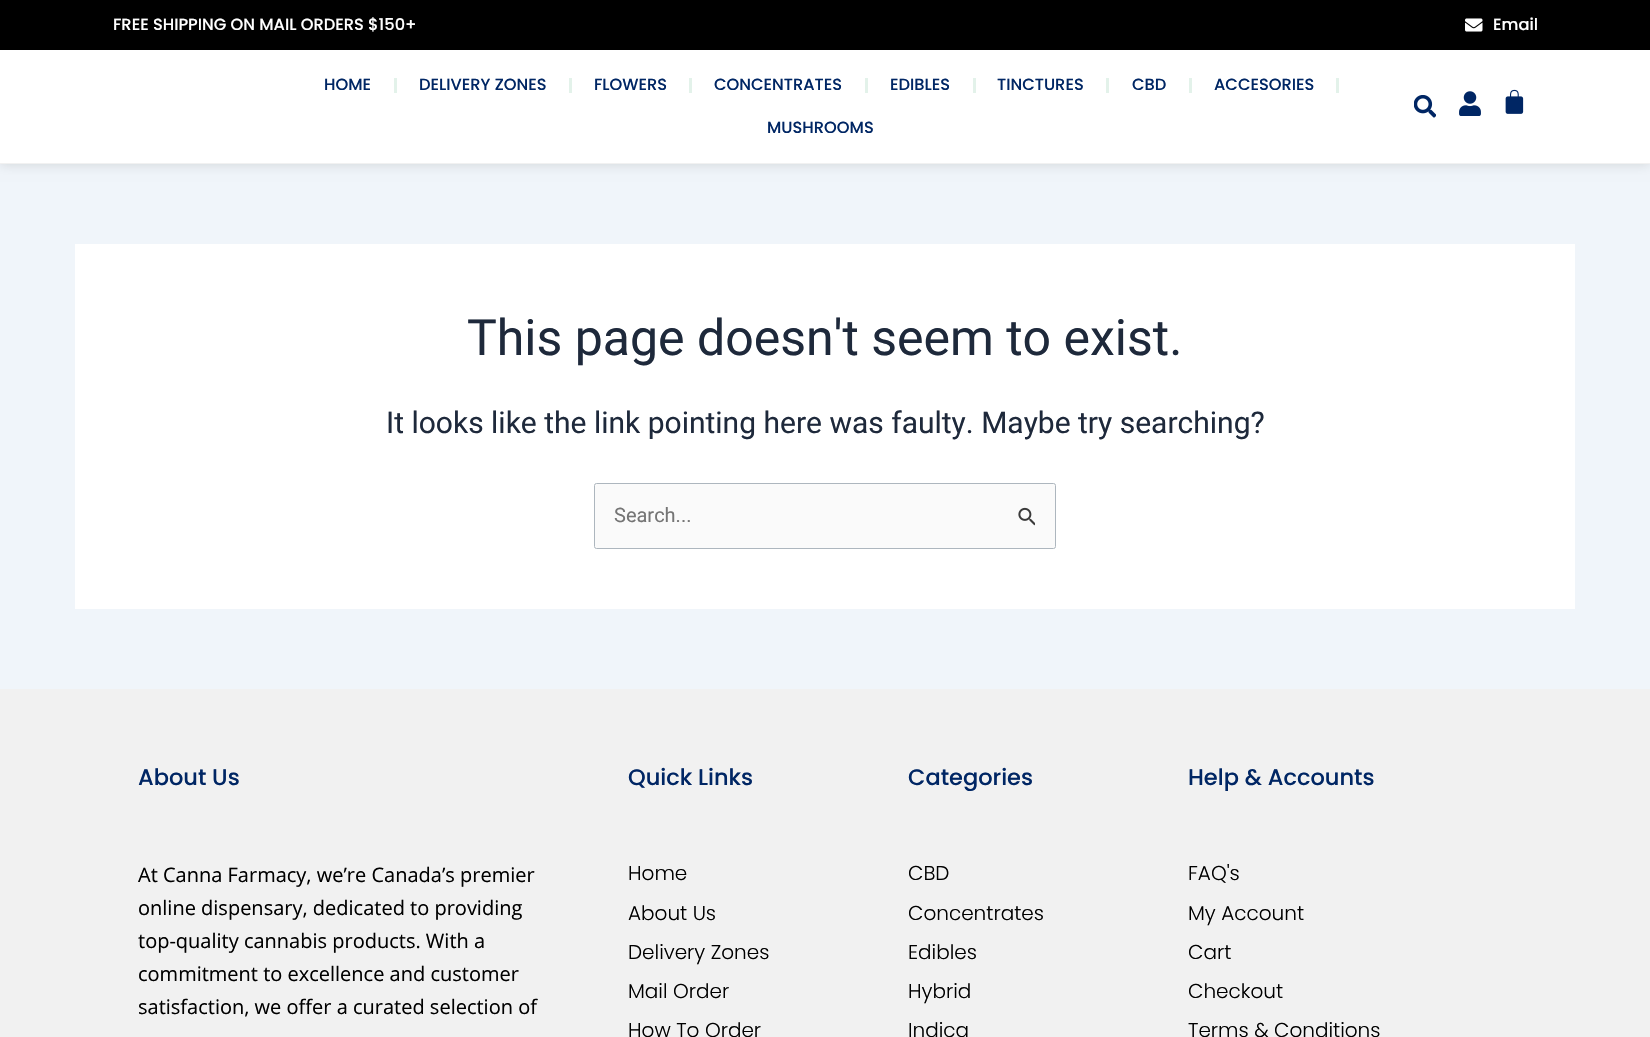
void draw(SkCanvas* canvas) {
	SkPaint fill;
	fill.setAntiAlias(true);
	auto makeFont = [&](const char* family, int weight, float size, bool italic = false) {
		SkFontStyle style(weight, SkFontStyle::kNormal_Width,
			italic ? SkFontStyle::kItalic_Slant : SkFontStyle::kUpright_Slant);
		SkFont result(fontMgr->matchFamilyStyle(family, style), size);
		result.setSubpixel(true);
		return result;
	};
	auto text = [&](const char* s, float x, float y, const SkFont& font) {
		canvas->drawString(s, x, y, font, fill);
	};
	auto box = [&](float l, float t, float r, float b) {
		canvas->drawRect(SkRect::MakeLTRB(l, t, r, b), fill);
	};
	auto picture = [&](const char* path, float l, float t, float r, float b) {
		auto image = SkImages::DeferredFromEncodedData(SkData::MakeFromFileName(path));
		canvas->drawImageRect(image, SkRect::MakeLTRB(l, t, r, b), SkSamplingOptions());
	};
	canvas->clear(0xFFF0F5FA);
	fill.setColor(0xFF000000);
	box(0, 0, 1650, 50);
	picture("image0.png", 1465, 18, 1483, 32);
	fill.setColor(0x24000000);
	fill.setMaskFilter(SkMaskFilter::MakeBlur(kNormal_SkBlurStyle, 6));
	canvas->drawRect(SkRect::MakeLTRB(0, 50, 1650, 164), fill);
	fill.setMaskFilter(nullptr);
	fill.setColor(0xFFFFFFFF);
	box(0, 50, 1650, 163);
	fill.setColor(0xFFF1F1F1);
	box(0, 163, 1650, 164);
	fill.setColor(0xFFE3F2EA);
	box(394, 78, 397, 93);
	box(569, 78, 572, 93);
	box(689, 78, 692, 93);
	box(865, 78, 868, 93);
	box(973, 78, 976, 93);
	box(1106, 78, 1109, 93);
	box(1189, 78, 1192, 93);
	box(1336, 78, 1339, 93);
	picture("image1.png", 1414, 95, 1436, 118);
	picture("image2.png", 1459, 91, 1481, 116);
	picture("image3.png", 1505, 89, 1524, 114);
	fill.setColor(0xFFFFFFFF);
	box(75, 244, 1575, 609);
	fill.setColor(0xFFFAFAFA);
	canvas->drawRoundRect(SkRect::MakeLTRB(594.5f, 483.5f, 1055.5f, 548.5f), 2, 2, fill);
	fill.setStyle(SkPaint::kStroke_Style);
	fill.setStrokeWidth(1);
	fill.setColor(0xFFADB6BE);
	canvas->drawRoundRect(SkRect::MakeLTRB(594.5f, 483.5f, 1055.5f, 548.5f), 2, 2, fill);
	picture("image4.png", 1018, 507, 1035, 526);
	fill.setStyle(SkPaint::kFill_Style);
	fill.setColor(0xFFF1F1F1);
	box(0, 689, 1650, 1037);
	auto font1 = makeFont("Poppins", 500, 16.25f);
	fill.setColor(0xFFFFFFFF);
	text("FREE SHIPPING ON MAIL ORDERS $150+", 113, 30, font1);
	text("Email", 1493, 30, font1);
	fill.setColor(0xFF002664);
	text("HOME", 324, 90, font1);
	text("DELIVERY ZONES", 419, 90, font1);
	text("FLOWERS", 594, 90, font1);
	text("CONCENTRATES", 714, 90, font1);
	text("EDIBLES", 890, 90, font1);
	text("TINCTURES", 997, 90, font1);
	text("CBD", 1132, 90, font1);
	text("ACCESORIES", 1214, 90, font1);
	text("MUSHROOMS", 767, 133, font1);
	auto font2 = makeFont("Roboto", 400, 50);
	fill.setColor(0xFF1E293B);
	text("This page doesn't seem to exist.", 467, 355, font2);
	auto font3 = makeFont("Roboto", 400, 30);
	text("It looks like the link pointing here was faulty. Maybe try searching?", 386, 433, font3);
	auto font4 = makeFont("Roboto", 400, 20);
	fill.setColor(0xFF757575);
	text("Search...", 614, 522, font4);
	auto font5 = makeFont("Poppins", 500, 22.5f);
	fill.setColor(0xFF002664);
	text("About Us", 138, 785, font5);
	auto font6 = makeFont("Open Sans", 400, 20);
	fill.setColor(0xFF000000);
	text("At Canna Farmacy, we’re Canada’s premier", 138, 882, font6);
	text("online dispensary, dedicated to providing", 138, 915, font6);
	text("top-quality cannabis products. With a", 138, 948, font6);
	text("commitment to excellence and customer", 138, 981, font6);
	text("satisfaction, we offer a curated selection of", 138, 1014, font6);
	fill.setColor(0xFF002664);
	text("Quick Links", 628, 785, font5);
	auto font7 = makeFont("Poppins", 300, 20);
	fill.setColor(0xFF000000);
	text("Home", 628, 880, font7);
	text("About Us", 628, 920, font7);
	text("Delivery Zones", 628, 959, font7);
	text("Mail Order", 628, 998, font7);
	text("How To Order", 628, 1037, font7);
	fill.setColor(0xFF002664);
	text("Categories", 908, 785, font5);
	fill.setColor(0xFF000000);
	text("CBD", 908, 880, font7);
	text("Concentrates", 908, 920, font7);
	text("Edibles", 908, 959, font7);
	text("Hybrid", 908, 998, font7);
	text("Indica", 908, 1037, font7);
	fill.setColor(0xFF002664);
	text("Help & Accounts", 1188, 785, font5);
	fill.setColor(0xFF000000);
	text("FAQ's", 1188, 880, font7);
	text("My Account", 1188, 920, font7);
	text("Cart", 1188, 959, font7);
	text("Checkout", 1188, 998, font7);
	text("Terms & Conditions", 1188, 1037, font7);
}
